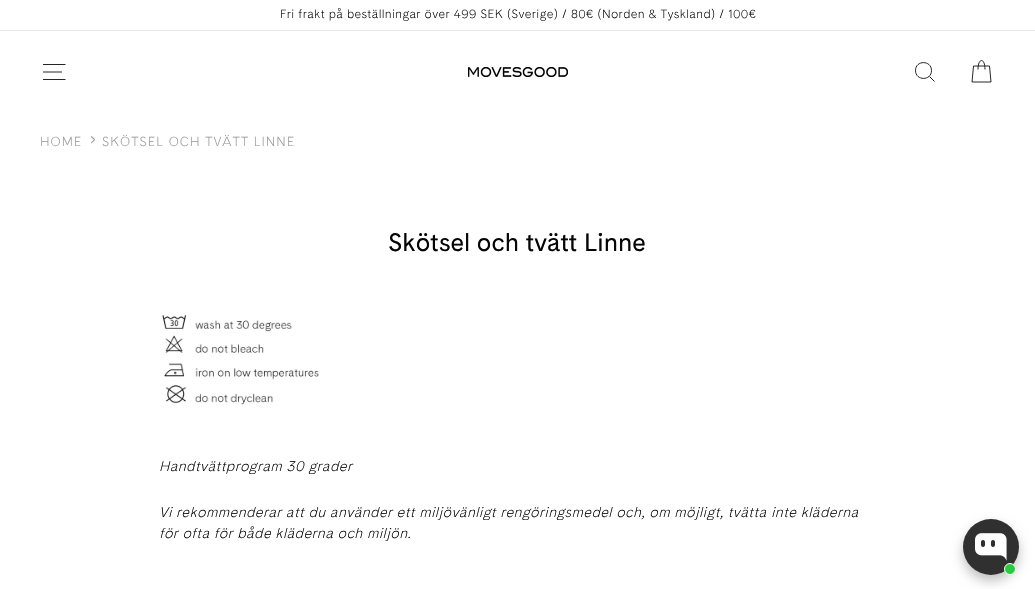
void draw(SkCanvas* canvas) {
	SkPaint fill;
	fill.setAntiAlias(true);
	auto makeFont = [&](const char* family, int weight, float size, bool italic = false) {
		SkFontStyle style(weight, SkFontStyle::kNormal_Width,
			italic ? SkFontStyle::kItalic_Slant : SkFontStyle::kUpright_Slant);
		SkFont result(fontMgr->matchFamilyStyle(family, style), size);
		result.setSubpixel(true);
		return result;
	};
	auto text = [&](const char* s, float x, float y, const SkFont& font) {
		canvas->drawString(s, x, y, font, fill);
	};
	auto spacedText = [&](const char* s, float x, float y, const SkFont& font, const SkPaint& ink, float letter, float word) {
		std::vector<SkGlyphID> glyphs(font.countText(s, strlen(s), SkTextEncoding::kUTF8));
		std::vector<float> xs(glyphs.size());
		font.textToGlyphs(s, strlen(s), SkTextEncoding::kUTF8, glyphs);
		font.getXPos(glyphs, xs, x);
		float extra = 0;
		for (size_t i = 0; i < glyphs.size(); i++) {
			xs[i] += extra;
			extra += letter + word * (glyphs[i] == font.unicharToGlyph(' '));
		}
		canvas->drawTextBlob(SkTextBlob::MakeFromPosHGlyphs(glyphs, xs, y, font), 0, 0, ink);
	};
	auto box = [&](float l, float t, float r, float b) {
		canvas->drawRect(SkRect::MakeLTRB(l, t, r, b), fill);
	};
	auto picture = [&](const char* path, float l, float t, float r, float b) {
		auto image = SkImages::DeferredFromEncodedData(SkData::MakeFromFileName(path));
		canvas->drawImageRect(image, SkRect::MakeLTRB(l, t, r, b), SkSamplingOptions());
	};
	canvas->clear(0xFFFFFFFF);
	fill.setColor(0xFFE8E8E1);
	box(0, 30, 1035, 31);
	fill.setStyle(SkPaint::kStroke_Style);
	fill.setStrokeWidth(0.9f);
	fill.setColor(0xFF0D0C0C);
	canvas->drawPath(SkPathBuilder().moveTo(43, 64.5f).lineTo(65.5f, 64.5f).moveTo(43, 72).lineTo(62, 72).moveTo(43, 79.5f).lineTo(65.5f, 79.5f).detach(), fill);
	picture("image0.png", 468, 67, 568, 77);
	canvas->drawPath(SkPathBuilder().moveTo(931.5f, 70.5f).cubicTo(931.5f, 81, 915.5f, 81, 915.5f, 70.5f).cubicTo(915.5f, 60, 931.5f, 60, 931.5f, 70.5f).close().moveTo(934.5f, 81.5f).lineTo(929.5f, 76.5f).detach(), fill);
	canvas->drawPath(SkPathBuilder().moveTo(978, 69.5f).cubicTo(978, 57.5f, 985, 57.5f, 985, 69.5f).moveTo(973.5f, 66).lineTo(989.5f, 66).lineTo(991, 82).lineTo(972, 82).close().detach(), fill);
	picture("image1.png", 162, 314, 319, 405);
	fill.setStyle(SkPaint::kFill_Style);
	fill.setColor(0x40000000);
	fill.setMaskFilter(SkMaskFilter::MakeBlur(kNormal_SkBlurStyle, 6));
	canvas->drawRoundRect(SkRect::MakeLTRB(963, 525, 1019, 581), 28, 28, fill);
	fill.setMaskFilter(nullptr);
	fill.setColor(0xFF303030);
	canvas->drawCircle(991, 547, 28, fill);
	picture("image2.png", 975, 533, 1007, 561);
	fill.setColor(0xFF27CA40);
	canvas->drawCircle(1010, 569, 5.5f, fill);
	fill.setStyle(SkPaint::kStroke_Style);
	fill.setStrokeWidth(1);
	fill.setColor(0xFFFFFFFF);
	canvas->drawCircle(1010, 569, 5.5f, fill);
	auto font1 = makeFont("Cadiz", 300, 11.9f);
	fill.setStyle(SkPaint::kFill_Style);
	fill.setColor(0xFF050505);
	spacedText("Fri frakt på beställningar över 499 SEK (Sverige) / 80€ (Norden & Tyskland) / 100€", 280, 18, font1, fill, 0.35f, 0);
	auto font2 = makeFont("Cadiz", 300, 13);
	fill.setColor(0xFF989898);
	spacedText("HOME", 40, 146, font2, fill, 1, 0);
	auto font3 = makeFont("Cadiz", 300, 20);
	spacedText("›", 90, 146, font3, fill, 1, 0);
	spacedText("SKÖTSEL OCH TVÄTT LINNE", 102, 146, font2, fill, 1, 0);
	auto font4 = makeFont("Cadiz", 400, 25);
	fill.setColor(0xFF050505);
	text("Skötsel och tvätt Linne", 388, 251, font4);
	auto font5 = makeFont("Cadiz", 300, 14, true);
	spacedText("Handtvättprogram 30 grader", 159, 471, font5, fill, 0.35f, 0);
	spacedText("Vi rekommenderar att du använder ett miljövänligt rengöringsmedel och, om möjligt, tvätta inte kläderna", 159, 517, font5, fill, 0.35f, 0);
	spacedText("för ofta för både kläderna och miljön.", 159, 538, font5, fill, 0.35f, 0);
}
